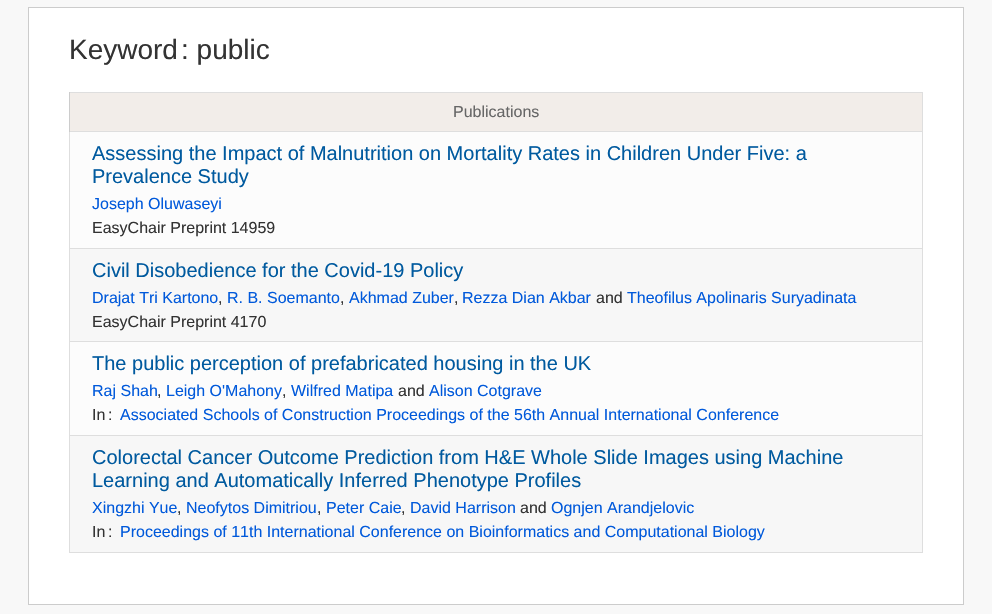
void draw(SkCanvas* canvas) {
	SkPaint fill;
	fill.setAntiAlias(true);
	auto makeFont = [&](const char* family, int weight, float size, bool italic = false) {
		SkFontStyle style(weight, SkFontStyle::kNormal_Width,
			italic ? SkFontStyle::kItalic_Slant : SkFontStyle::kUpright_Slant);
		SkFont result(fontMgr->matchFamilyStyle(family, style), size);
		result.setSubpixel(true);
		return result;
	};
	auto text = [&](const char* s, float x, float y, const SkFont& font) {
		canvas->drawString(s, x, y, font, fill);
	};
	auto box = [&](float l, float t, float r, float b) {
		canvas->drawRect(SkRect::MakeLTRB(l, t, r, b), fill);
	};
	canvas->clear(0xFFF8F8F8);
	fill.setColor(0xFFFFFFFF);
	canvas->drawRect(SkRect::MakeLTRB(28.5f, 7.5f, 963.5f, 604.5f), fill);
	fill.setStyle(SkPaint::kStroke_Style);
	fill.setStrokeWidth(1);
	fill.setColor(0xFFCCCCCC);
	canvas->drawRect(SkRect::MakeLTRB(28.5f, 7.5f, 963.5f, 604.5f), fill);
	fill.setStyle(SkPaint::kFill_Style);
	fill.setColor(0xFFDEDEDE);
	box(69, 92, 923, 93);
	box(922, 92, 923, 553);
	box(69, 552, 923, 553);
	box(69, 132, 70, 553);
	fill.setColor(0xFFF2EDE9);
	box(70, 93, 922, 131);
	fill.setColor(0xFFDEDEDE);
	box(69, 131, 923, 132);
	fill.setColor(0xFFCCCCCC);
	box(69, 92, 70, 132);
	fill.setColor(0xFFFCFCFC);
	box(70, 132, 922, 248);
	fill.setColor(0xFFDEDEDE);
	box(69, 248, 923, 249);
	fill.setColor(0xFFF7F7F7);
	box(70, 249, 922, 341);
	fill.setColor(0xFFDEDEDE);
	box(69, 341, 923, 342);
	fill.setColor(0xFFFCFCFC);
	box(70, 342, 922, 435);
	fill.setColor(0xFFDEDEDE);
	box(69, 435, 923, 436);
	fill.setColor(0xFFF7F7F7);
	box(70, 436, 922, 552);
	auto font1 = makeFont("Liberation Sans", 400, 28);
	fill.setColor(0xFF333333);
	text("Keyword", 69, 59, font1);
	text(": public", 181, 59, font1);
	auto font2 = makeFont("Liberation Sans", 400, 16);
	fill.setColor(0xFF666666);
	text("Publications", 453, 117, font2);
	auto font3 = makeFont("Liberation Sans", 400, 20);
	fill.setColor(0xFF005A9F);
	text("Assessing the Impact of Malnutrition on Mortality Rates in Children Under Five: a", 92, 160, font3);
	text("Prevalence Study", 92, 183, font3);
	fill.setColor(0xFF0059DB);
	text("Joseph Oluwaseyi", 92, 209, font2);
	fill.setColor(0xFF333333);
	text("EasyChair Preprint 14959", 92, 233, font2);
	fill.setColor(0xFF005A9F);
	text("Civil Disobedience for the Covid-19 Policy", 92, 277, font3);
	fill.setColor(0xFF0059DB);
	text("Drajat Tri Kartono", 92, 303, font2);
	fill.setColor(0xFF333333);
	text(",", 218, 303, font2);
	fill.setColor(0xFF0059DB);
	text("R. B. Soemanto", 227, 303, font2);
	fill.setColor(0xFF333333);
	text(",", 340, 303, font2);
	fill.setColor(0xFF0059DB);
	text("Akhmad Zuber", 349, 303, font2);
	fill.setColor(0xFF333333);
	text(",", 454, 303, font2);
	fill.setColor(0xFF0059DB);
	text("Rezza Dian Akbar", 462, 303, font2);
	fill.setColor(0xFF333333);
	text("and", 596, 303, font2);
	fill.setColor(0xFF0059DB);
	text("Theofilus Apolinaris Suryadinata", 627, 303, font2);
	fill.setColor(0xFF333333);
	text("EasyChair Preprint 4170", 92, 327, font2);
	fill.setColor(0xFF005A9F);
	text("The public perception of prefabricated housing in the UK", 92, 370, font3);
	fill.setColor(0xFF0059DB);
	text("Raj Shah", 92, 396, font2);
	fill.setColor(0xFF333333);
	text(",", 157, 396, font2);
	fill.setColor(0xFF0059DB);
	text("Leigh O'Mahony", 166, 396, font2);
	fill.setColor(0xFF333333);
	text(",", 282, 396, font2);
	fill.setColor(0xFF0059DB);
	text("Wilfred Matipa", 291, 396, font2);
	fill.setColor(0xFF333333);
	text("and", 398, 396, font2);
	fill.setColor(0xFF0059DB);
	text("Alison Cotgrave", 429, 396, font2);
	fill.setColor(0xFF333333);
	text("In", 92, 420, font2);
	text(":", 108, 420, font2);
	fill.setColor(0xFF0059DB);
	text("Associated Schools of Construction Proceedings of the 56th Annual International Conference", 120, 420, font2);
	fill.setColor(0xFF005A9F);
	text("Colorectal Cancer Outcome Prediction from H&E Whole Slide Images using Machine", 92, 464, font3);
	text("Learning and Automatically Inferred Phenotype Profiles", 92, 487, font3);
	fill.setColor(0xFF0059DB);
	text("Xingzhi Yue", 92, 513, font2);
	fill.setColor(0xFF333333);
	text(",", 177, 513, font2);
	fill.setColor(0xFF0059DB);
	text("Neofytos Dimitriou", 186, 513, font2);
	fill.setColor(0xFF333333);
	text(",", 317, 513, font2);
	fill.setColor(0xFF0059DB);
	text("Peter Caie", 326, 513, font2);
	fill.setColor(0xFF333333);
	text(",", 401, 513, font2);
	fill.setColor(0xFF0059DB);
	text("David Harrison", 410, 513, font2);
	fill.setColor(0xFF333333);
	text("and", 520, 513, font2);
	fill.setColor(0xFF0059DB);
	text("Ognjen Arandjelovic", 551, 513, font2);
	fill.setColor(0xFF333333);
	text("In", 92, 537, font2);
	text(":", 108, 537, font2);
	fill.setColor(0xFF0059DB);
	text("Proceedings of 11th International Conference on Bioinformatics and Computational Biology", 120, 537, font2);
}
